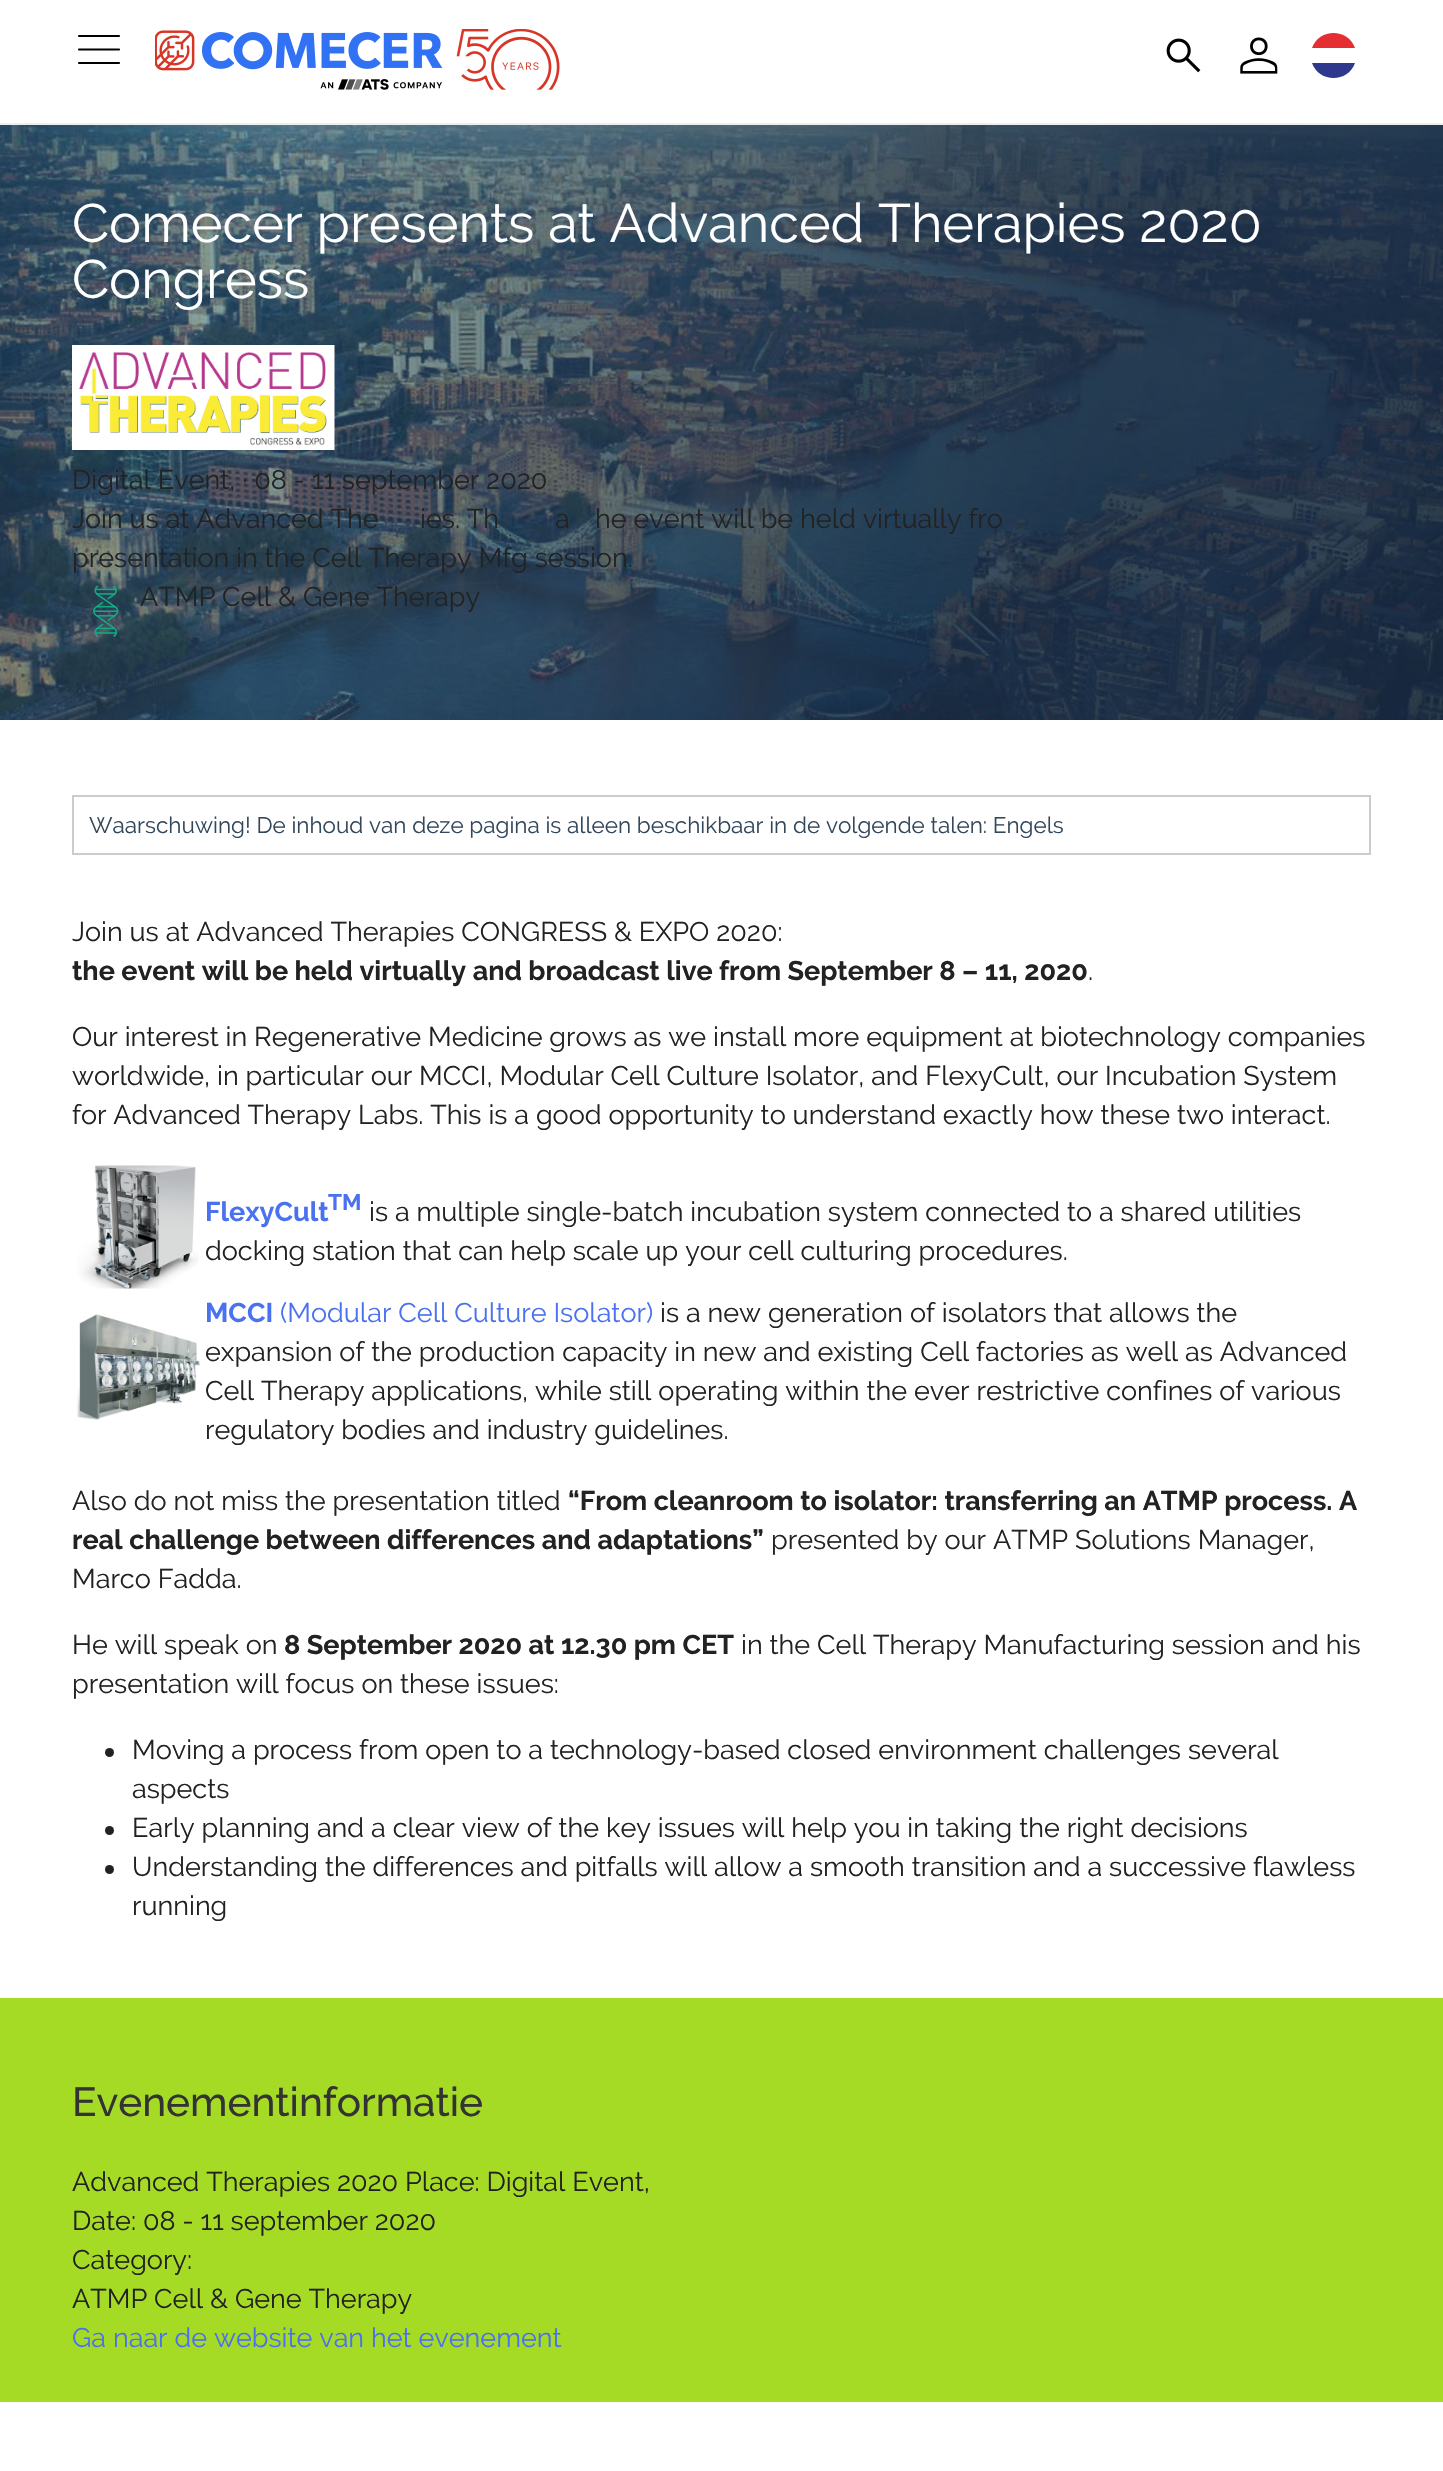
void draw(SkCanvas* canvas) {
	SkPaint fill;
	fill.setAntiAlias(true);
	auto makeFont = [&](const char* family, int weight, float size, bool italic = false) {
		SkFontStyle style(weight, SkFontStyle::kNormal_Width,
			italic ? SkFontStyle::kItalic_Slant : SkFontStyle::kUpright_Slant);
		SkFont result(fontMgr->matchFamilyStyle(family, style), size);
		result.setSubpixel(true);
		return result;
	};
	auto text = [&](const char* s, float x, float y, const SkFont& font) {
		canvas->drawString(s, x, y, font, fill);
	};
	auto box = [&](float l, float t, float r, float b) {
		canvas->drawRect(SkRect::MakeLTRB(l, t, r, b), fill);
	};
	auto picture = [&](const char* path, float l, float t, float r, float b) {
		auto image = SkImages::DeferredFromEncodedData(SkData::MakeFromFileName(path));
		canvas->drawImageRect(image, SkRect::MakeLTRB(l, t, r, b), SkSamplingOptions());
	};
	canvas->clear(0xFFFFFFFF);
	fill.setColor(0xFFEEEEEE);
	box(0, 123, 1443, 125);
	fill.setStyle(SkPaint::kStroke_Style);
	fill.setStrokeWidth(2.2f);
	fill.setStrokeCap(SkPaint::kRound_Cap);
	fill.setStrokeJoin(SkPaint::kRound_Join);
	fill.setColor(0xFF000000);
	canvas->drawPath(SkPathBuilder().moveTo(79, 49.5f).lineTo(119, 49.5f).moveTo(79, 36).lineTo(119, 36).moveTo(79, 63).lineTo(119, 63).detach(), fill);
	picture("image0.png", 155, 29, 560, 90);
	picture("image1.png", 1166, 38, 1201, 73);
	picture("image2.png", 1240, 37, 1278, 74);
	fill.setStyle(SkPaint::kFill_Style);
	fill.setColor(0xFFE62D31);
	canvas->drawPath(SkPathBuilder(SkPathFillType::kEvenOdd).moveTo(1312, 48).lineTo(1355, 48).cubicTo(1348, 28, 1319, 28, 1312, 48).close().detach(), fill);
	fill.setColor(0xFF2E388D);
	canvas->drawPath(SkPathBuilder(SkPathFillType::kEvenOdd).moveTo(1355, 63).lineTo(1312, 63).cubicTo(1319, 83, 1348, 83, 1355, 63).close().detach(), fill);
	picture("image3.png", 0, 125, 1443, 720);
	picture("image4.png", 72, 345, 335, 450);
	picture("image5.png", 93, 585, 119, 637);
	fill.setStyle(SkPaint::kStroke_Style);
	fill.setStrokeWidth(2);
	fill.setStrokeCap(SkPaint::kButt_Cap);
	fill.setStrokeJoin(SkPaint::kMiter_Join);
	fill.setColor(0xFFCCCCCC);
	canvas->drawRect(SkRect::MakeLTRB(73, 796, 1370, 854), fill);
	picture("image6.png", 77, 1165, 199, 1289);
	picture("image7.png", 77, 1314, 200, 1420);
	fill.setStyle(SkPaint::kFill_Style);
	fill.setColor(0xFF222222);
	canvas->drawCircle(109.5f, 1752.5f, 4.5f, fill);
	canvas->drawCircle(109.5f, 1830.5f, 4.5f, fill);
	canvas->drawCircle(109.5f, 1869.5f, 4.5f, fill);
	fill.setColor(0xFFA5DA25);
	box(0, 1998, 1443, 2402);
	auto font1 = makeFont("Raleway", 400, 54);
	fill.setColor(0xFFFFFFFF);
	text("Comecer presents at Advanced Therapies 2020", 72, 242, font1);
	text("Congress", 72, 298, font1);
	auto font2 = makeFont("Raleway", 400, 27);
	fill.setColor(0xFF222222);
	text("Digital Event, · 08 - 11 september 2020", 72, 489, font2);
	text("Join us at Advanced The", 72, 528, font2);
	text("ies. Th", 420, 528, font2);
	text("a", 555, 528, font2);
	text("he event will be held virtually fro", 595, 528, font2);
	text("presentation in the Cell Therapy Mfg session.", 72, 567, font2);
	text("ATMP Cell & Gene Therapy", 140, 606, font2);
	auto font3 = makeFont("Raleway", 400, 22.5f);
	fill.setColor(0xFF33475B);
	text("Waarschuwing! De inhoud van deze pagina is alleen beschikbaar in de volgende talen: Engels", 89, 833, font3);
	fill.setColor(0xFF222222);
	text("Join us at Advanced Therapies CONGRESS & EXPO 2020:", 72, 941, font2);
	auto font4 = makeFont("Raleway", 700, 27);
	text("the event will be held virtually and broadcast live from September 8 – 11, 2020", 72, 980, font4);
	text(".", 1088, 980, font2);
	text("Our interest in Regenerative Medicine grows as we install more equipment at biotechnology companies", 72, 1046, font2);
	text("worldwide, in particular our MCCI, Modular Cell Culture Isolator, and FlexyCult, our Incubation System", 72, 1085, font2);
	text("for Advanced Therapy Labs. This is a good opportunity to understand exactly how these two interact.", 72, 1124, font2);
	fill.setColor(0xFF4A71F0);
	text("FlexyCult", 205, 1221, font4);
	auto font5 = makeFont("Raleway", 700, 22.5f);
	text("TM", 328, 1210, font5);
	fill.setColor(0xFF222222);
	text("is a multiple single-batch incubation system connected to a shared utilities", 369, 1221, font2);
	text("docking station that can help scale up your cell culturing procedures.", 205, 1260, font2);
	fill.setColor(0xFF4A71F0);
	text("MCCI", 205, 1322, font4);
	text("(Modular Cell Culture Isolator)", 280, 1322, font2);
	fill.setColor(0xFF222222);
	text("is a new generation of isolators that allows the", 660, 1322, font2);
	text("expansion of the production capacity in new and existing Cell factories as well as Advanced", 205, 1361, font2);
	text("Cell Therapy applications, while still operating within the ever restrictive confines of various", 205, 1400, font2);
	text("regulatory bodies and industry guidelines.", 205, 1439, font2);
	text("Also do not miss the presentation titled", 72, 1510, font2);
	text("“From cleanroom to isolator: transferring an ATMP process. A", 568, 1510, font4);
	text("real challenge between differences and adaptations”", 72, 1549, font4);
	text("presented by our ATMP Solutions Manager,", 771, 1549, font2);
	text("Marco Fadda.", 72, 1588, font2);
	text("He will speak on", 72, 1654, font2);
	text("8 September 2020 at 12.30 pm CET", 284, 1654, font4);
	text("in the Cell Therapy Manufacturing session and his", 741, 1654, font2);
	text("presentation will focus on these issues:", 72, 1693, font2);
	text("Moving a process from open to a technology-based closed environment challenges several", 132, 1759, font2);
	text("aspects", 132, 1798, font2);
	text("Early planning and a clear view of the key issues will help you in taking the right decisions", 132, 1837, font2);
	text("Understanding the differences and pitfalls will allow a smooth transition and a successive flawless", 132, 1876, font2);
	text("running", 132, 1915, font2);
	auto font6 = makeFont("Raleway", 500, 40.5f);
	fill.setColor(0xFF333333);
	text("Evenementinformatie", 72, 2116, font6);
	fill.setColor(0xFF222222);
	text("Advanced Therapies 2020 Place: Digital Event,", 72, 2191, font2);
	text("Date: 08 - 11 september 2020", 72, 2230, font2);
	text("Category:", 72, 2269, font2);
	text("ATMP Cell & Gene Therapy", 72, 2308, font2);
	fill.setColor(0xFF4A71F0);
	text("Ga naar de website van het evenement", 72, 2347, font2);
}
